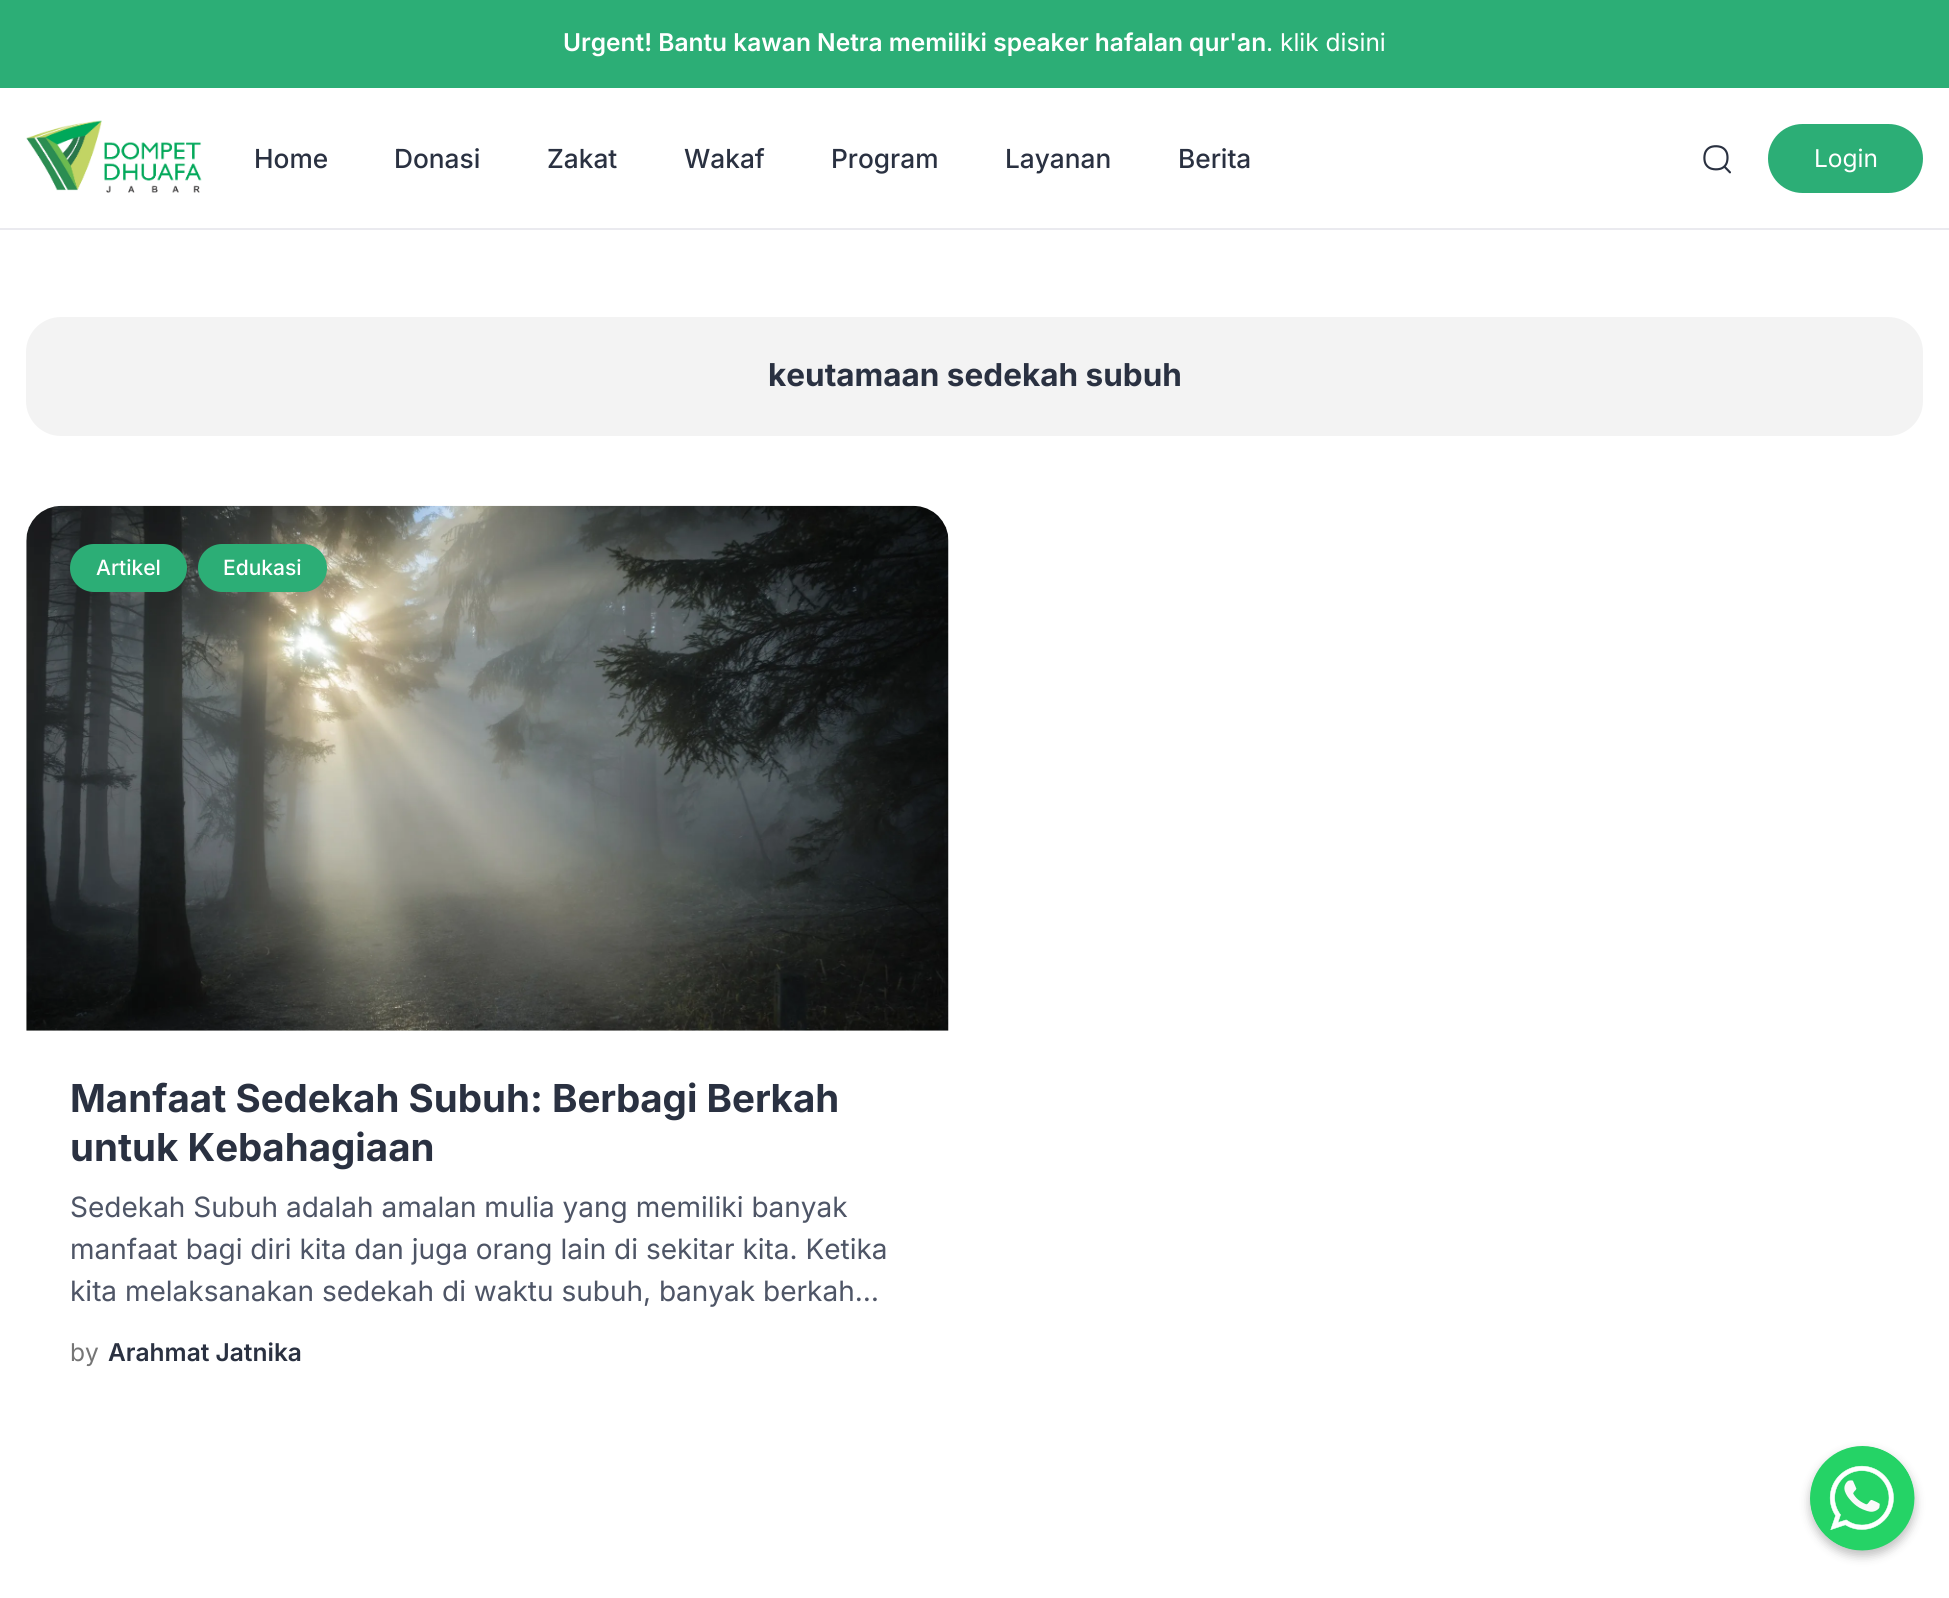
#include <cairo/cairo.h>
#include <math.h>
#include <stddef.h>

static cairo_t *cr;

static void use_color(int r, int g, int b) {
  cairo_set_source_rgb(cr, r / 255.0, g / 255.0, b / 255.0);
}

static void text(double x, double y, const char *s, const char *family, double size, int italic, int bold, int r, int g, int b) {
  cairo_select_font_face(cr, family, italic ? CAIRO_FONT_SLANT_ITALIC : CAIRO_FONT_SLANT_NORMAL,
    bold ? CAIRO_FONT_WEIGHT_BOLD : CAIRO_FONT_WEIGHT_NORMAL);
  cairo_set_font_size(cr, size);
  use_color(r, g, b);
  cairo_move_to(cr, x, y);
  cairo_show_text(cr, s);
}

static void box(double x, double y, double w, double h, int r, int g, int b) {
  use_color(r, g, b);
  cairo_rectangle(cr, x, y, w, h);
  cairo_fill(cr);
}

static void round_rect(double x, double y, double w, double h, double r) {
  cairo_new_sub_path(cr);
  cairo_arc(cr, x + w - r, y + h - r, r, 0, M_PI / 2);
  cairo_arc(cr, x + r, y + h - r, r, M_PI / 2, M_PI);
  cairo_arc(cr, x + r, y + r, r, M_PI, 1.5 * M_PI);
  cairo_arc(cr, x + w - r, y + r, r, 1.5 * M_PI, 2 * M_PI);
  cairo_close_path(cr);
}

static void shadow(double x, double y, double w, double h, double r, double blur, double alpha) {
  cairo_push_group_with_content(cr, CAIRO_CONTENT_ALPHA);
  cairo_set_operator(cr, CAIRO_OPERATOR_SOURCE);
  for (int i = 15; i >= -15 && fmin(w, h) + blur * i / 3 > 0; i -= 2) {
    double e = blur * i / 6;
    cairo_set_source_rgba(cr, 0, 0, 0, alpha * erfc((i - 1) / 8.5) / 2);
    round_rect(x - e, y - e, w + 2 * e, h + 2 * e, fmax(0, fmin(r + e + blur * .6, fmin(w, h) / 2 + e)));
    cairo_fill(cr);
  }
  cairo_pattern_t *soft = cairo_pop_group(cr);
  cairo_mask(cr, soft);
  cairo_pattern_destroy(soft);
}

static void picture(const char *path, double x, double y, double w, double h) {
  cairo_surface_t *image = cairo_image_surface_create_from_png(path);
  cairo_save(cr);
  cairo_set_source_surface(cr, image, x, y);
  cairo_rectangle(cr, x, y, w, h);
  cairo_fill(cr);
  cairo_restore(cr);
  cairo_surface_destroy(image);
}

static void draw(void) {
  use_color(255, 255, 255);
  cairo_paint(cr);
  box(0, 0, 1949, 88, 44, 174, 118);
  picture("img_01.png", 26, 120, 176, 73);
  picture("img_02.png", 1703, 145, 28, 29);
  round_rect(1768, 124, 155, 69, 34.5);
  cairo_fill(cr);
  box(0, 228, 1949, 2, 234, 234, 239);
  use_color(243, 243, 243);
  round_rect(26, 317, 1897, 119, 35);
  cairo_fill(cr);
  picture("img_03.png", 26, 505, 923, 526);
  use_color(44, 174, 118);
  round_rect(70, 544, 117, 48, 24);
  cairo_fill(cr);
  round_rect(198, 544, 129, 48, 24);
  cairo_fill(cr);
  use_color(0, 0, 0);
  shadow(1810, 1451, 105, 105, 52.5, 5, 0.25);
  picture("img_04.png", 1810, 1446, 105, 105);
  text(563, 51, "Urgent! Bantu kawan Netra memiliki speaker hafalan qur'an", "Inter SemiBold", 24.5, 0, 0, 255, 255, 255);
  text(1266, 51, ". klik disini", "Inter", 24.5, 0, 0, 255, 255, 255);
  text(254, 168, "Home", "Inter Medium", 26.25, 0, 0, 42, 49, 65);
  text(394, 168, "Donasi", "Inter Medium", 26.25, 0, 0, 42, 49, 65);
  text(547, 168, "Zakat", "Inter Medium", 26.25, 0, 0, 42, 49, 65);
  text(684, 168, "Wakaf", "Inter Medium", 26.25, 0, 0, 42, 49, 65);
  text(831, 168, "Program", "Inter Medium", 26.25, 0, 0, 42, 49, 65);
  text(1005, 168, "Layanan", "Inter Medium", 26.25, 0, 0, 42, 49, 65);
  text(1178, 168, "Berita", "Inter Medium", 26.25, 0, 0, 42, 49, 65);
  text(1814, 167, "Login", "Inter", 24.5, 0, 0, 255, 255, 255);
  text(768, 386, "keutamaan sedekah subuh", "Inter", 31.5, 0, 1, 42, 49, 65);
  text(96, 575, "Artikel", "Inter Medium", 21, 0, 0, 255, 255, 255);
  text(223, 575, "Edukasi", "Inter Medium", 21, 0, 0, 255, 255, 255);
  text(70, 1112, "Manfaat Sedekah Subuh: Berbagi Berkah", "Inter", 38.5, 0, 1, 42, 49, 65);
  text(70, 1161, "untuk Kebahagiaan", "Inter", 38.5, 0, 1, 42, 49, 65);
  text(70, 1217, "Sedekah Subuh adalah amalan mulia yang memiliki banyak", "Inter", 28, 0, 0, 78, 85, 102);
  text(70, 1259, "manfaat bagi diri kita dan juga orang lain di sekitar kita. Ketika", "Inter", 28, 0, 0, 78, 85, 102);
  text(70, 1301, "kita melaksanakan sedekah di waktu subuh, banyak berkah…", "Inter", 28, 0, 0, 78, 85, 102);
  text(70, 1361, "by", "Inter", 24.5, 0, 0, 117, 117, 117);
  text(108, 1361, "Arahmat Jatnika", "Inter SemiBold", 24.5, 0, 0, 42, 49, 65);
}

int main(void) {
  cairo_surface_t *surface = cairo_image_surface_create(CAIRO_FORMAT_RGB24, 1949, 1598);
  cr = cairo_create(surface);
  cairo_font_options_t *options = cairo_font_options_create();
  cairo_font_options_set_hint_metrics(options, CAIRO_HINT_METRICS_OFF);
  cairo_font_options_set_hint_style(options, CAIRO_HINT_STYLE_NONE);
  cairo_set_font_options(cr, options);
  cairo_set_miter_limit(cr, 4);
  draw();
  cairo_surface_write_to_png(surface, "out.png");
  cairo_font_options_destroy(options);
  cairo_destroy(cr);
  cairo_surface_destroy(surface);
  return 0;
}
